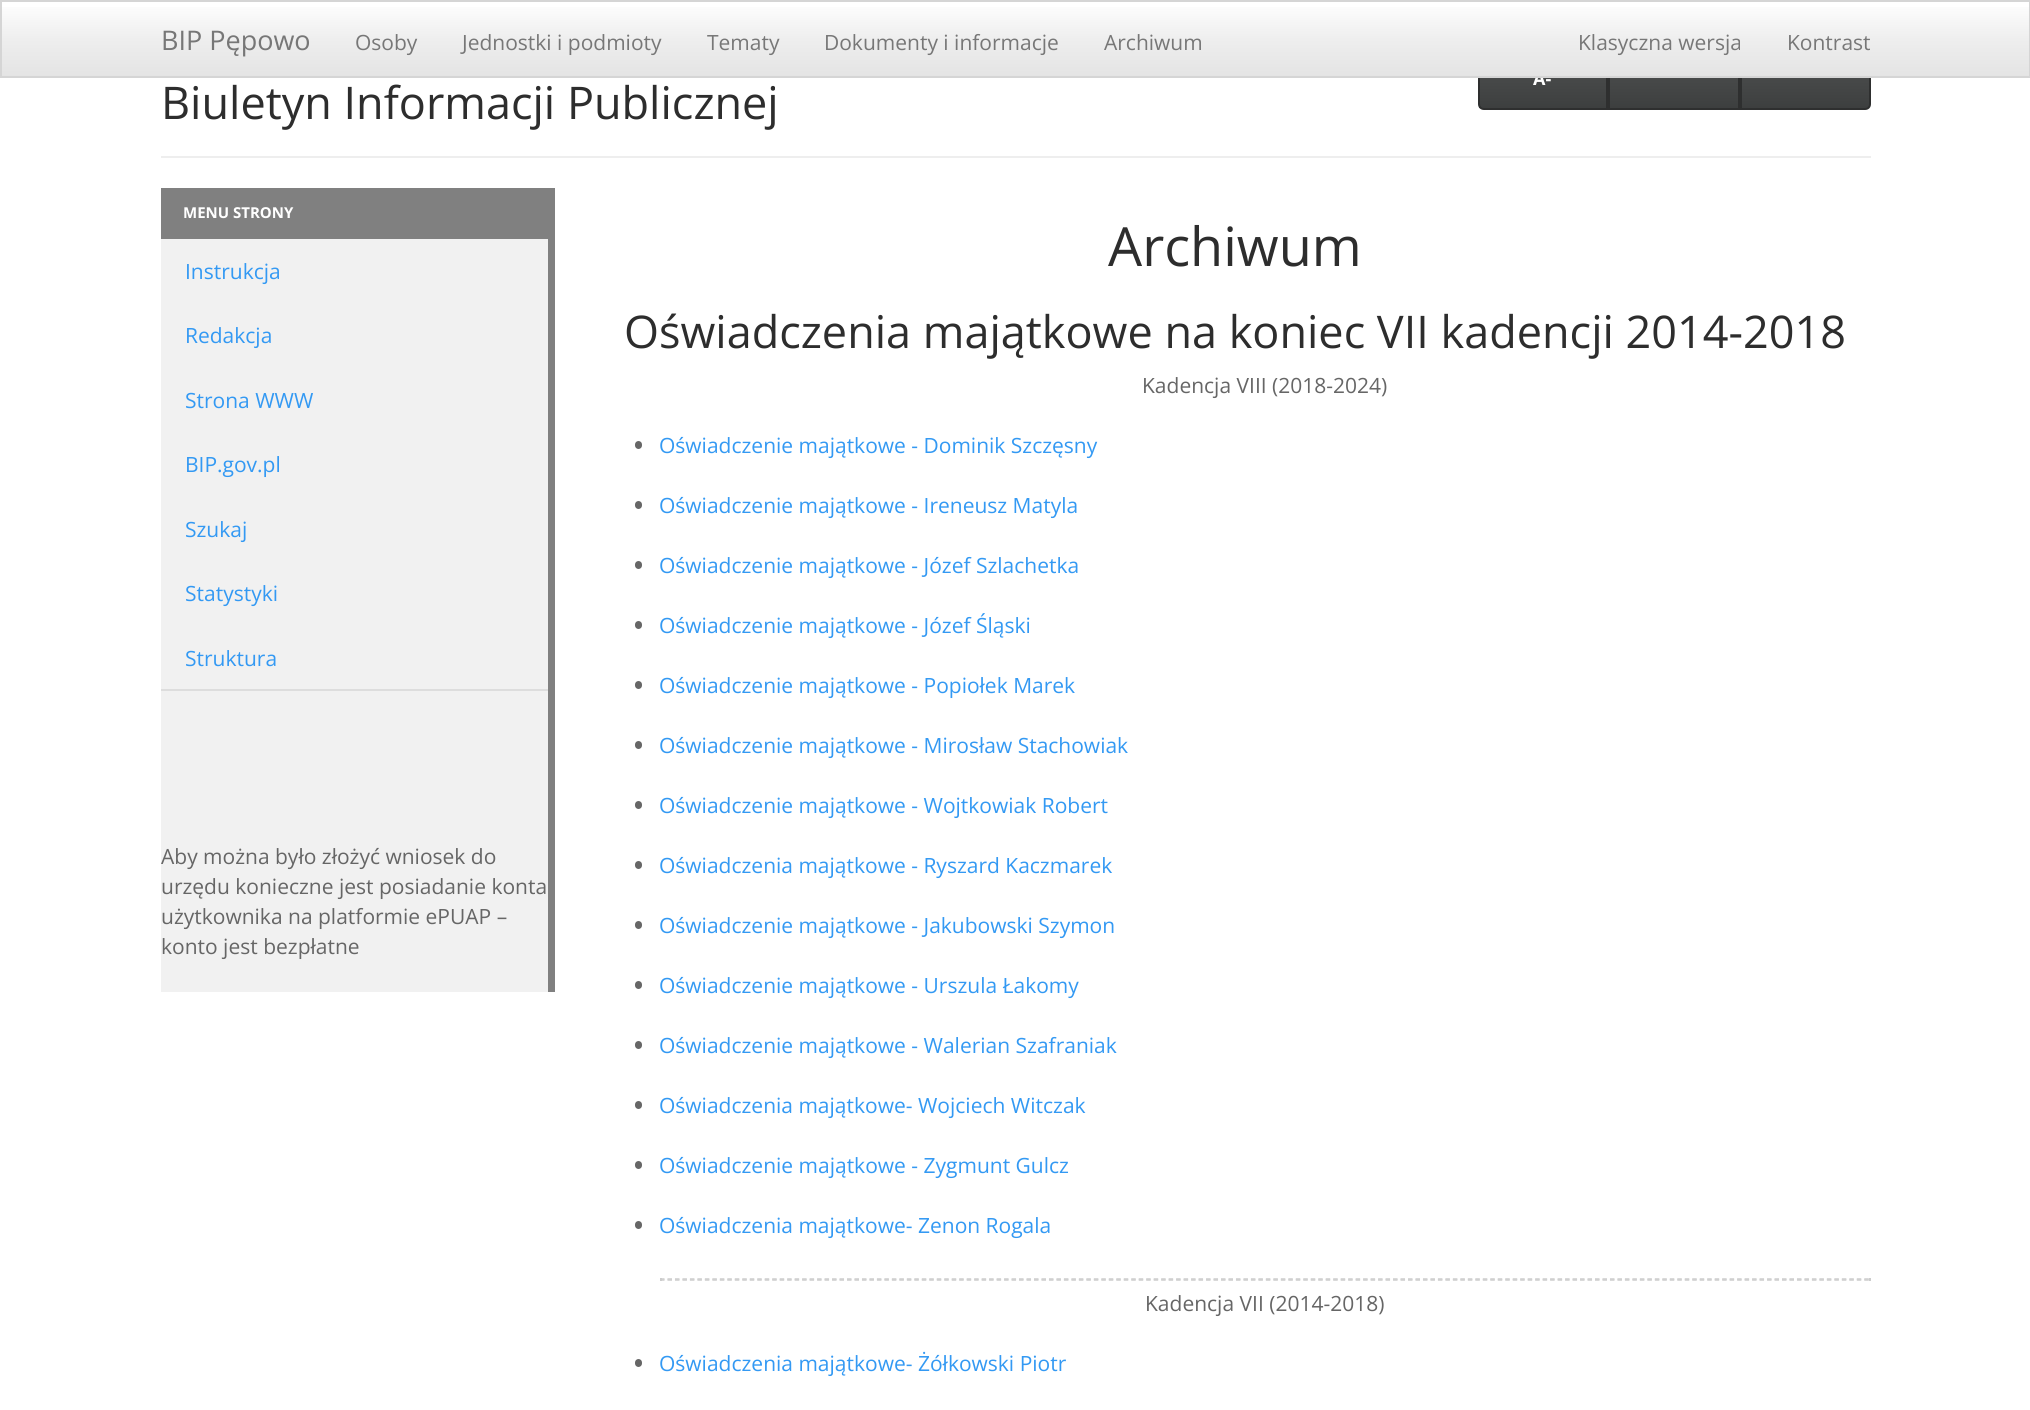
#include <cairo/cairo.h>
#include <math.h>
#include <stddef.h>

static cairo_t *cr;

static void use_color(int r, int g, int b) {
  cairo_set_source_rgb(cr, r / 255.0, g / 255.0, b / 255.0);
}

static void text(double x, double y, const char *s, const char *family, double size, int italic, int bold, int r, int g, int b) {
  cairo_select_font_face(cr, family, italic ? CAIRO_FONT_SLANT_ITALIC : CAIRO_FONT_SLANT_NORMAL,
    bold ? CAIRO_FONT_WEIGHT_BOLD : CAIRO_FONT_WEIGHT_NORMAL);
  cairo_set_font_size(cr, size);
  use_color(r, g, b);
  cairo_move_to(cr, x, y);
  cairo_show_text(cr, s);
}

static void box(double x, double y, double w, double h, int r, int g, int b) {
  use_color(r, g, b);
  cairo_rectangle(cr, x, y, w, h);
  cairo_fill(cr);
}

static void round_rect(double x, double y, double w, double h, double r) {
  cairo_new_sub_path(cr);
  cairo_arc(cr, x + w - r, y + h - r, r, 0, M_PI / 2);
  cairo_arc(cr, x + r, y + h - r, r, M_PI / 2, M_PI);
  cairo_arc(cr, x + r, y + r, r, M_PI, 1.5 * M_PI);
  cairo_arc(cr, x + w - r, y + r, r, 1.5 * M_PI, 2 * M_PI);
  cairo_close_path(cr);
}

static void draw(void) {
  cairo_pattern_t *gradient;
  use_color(255, 255, 255);
  cairo_paint(cr);
  box(161, 156, 1710, 2, 238, 238, 238);
  gradient = cairo_pattern_create_linear(1543, 50, 1543, 108);
  cairo_pattern_add_color_stop_rgba(gradient, 0, 0.427, 0.439, 0.439, 1);
  cairo_pattern_add_color_stop_rgba(gradient, 0.5, 0.278, 0.286, 0.286, 1);
  cairo_pattern_add_color_stop_rgba(gradient, 1, 0.239, 0.247, 0.247, 1);
  cairo_set_source(cr, gradient);
  cairo_pattern_destroy(gradient);
  cairo_rectangle(cr, 1479, 78, 127, 30);
  cairo_fill(cr);
  cairo_new_path(cr);
  cairo_move_to(cr, 1484, 49);
  cairo_line_to(cr, 1607, 49);
  cairo_line_to(cr, 1607, 109);
  cairo_line_to(cr, 1484, 109);
  cairo_curve_to(cr, 1481, 109, 1479, 107, 1479, 104);
  cairo_line_to(cr, 1479, 54);
  cairo_curve_to(cr, 1479, 51, 1481, 49, 1484, 49);
  cairo_close_path(cr);
  use_color(46, 47, 47);
  cairo_stroke(cr);
  gradient = cairo_pattern_create_linear(1674, 50, 1674, 108);
  cairo_pattern_add_color_stop_rgba(gradient, 0, 0.427, 0.439, 0.439, 1);
  cairo_pattern_add_color_stop_rgba(gradient, 0.5, 0.278, 0.286, 0.286, 1);
  cairo_pattern_add_color_stop_rgba(gradient, 1, 0.239, 0.247, 0.247, 1);
  cairo_set_source(cr, gradient);
  cairo_pattern_destroy(gradient);
  cairo_rectangle(cr, 1610, 78, 128, 30);
  cairo_fill(cr);
  cairo_rectangle(cr, 1609, 49, 130, 60);
  use_color(46, 47, 47);
  cairo_stroke(cr);
  gradient = cairo_pattern_create_linear(1805, 50, 1805, 108);
  cairo_pattern_add_color_stop_rgba(gradient, 0, 0.427, 0.439, 0.439, 1);
  cairo_pattern_add_color_stop_rgba(gradient, 0.5, 0.278, 0.286, 0.286, 1);
  cairo_pattern_add_color_stop_rgba(gradient, 1, 0.239, 0.247, 0.247, 1);
  cairo_set_source(cr, gradient);
  cairo_pattern_destroy(gradient);
  cairo_rectangle(cr, 1742, 78, 127, 30);
  cairo_fill(cr);
  cairo_new_path(cr);
  cairo_move_to(cr, 1741, 49);
  cairo_line_to(cr, 1865, 49);
  cairo_curve_to(cr, 1868, 49, 1870, 51, 1870, 54);
  cairo_line_to(cr, 1870, 104);
  cairo_curve_to(cr, 1870, 107, 1868, 109, 1865, 109);
  cairo_line_to(cr, 1741, 109);
  cairo_close_path(cr);
  use_color(46, 47, 47);
  cairo_stroke(cr);
  box(161, 239, 387, 753, 241, 241, 241);
  box(548, 188, 7, 804, 128, 128, 128);
  box(161, 689, 387, 2, 221, 221, 221);
  box(161, 188, 387, 51, 128, 128, 128);
  use_color(102, 102, 102);
  round_rect(635, 441, 7, 8, 3.5);
  cairo_fill(cr);
  round_rect(635, 501, 7, 8, 3.5);
  cairo_fill(cr);
  round_rect(635, 561, 7, 8, 3.5);
  cairo_fill(cr);
  round_rect(635, 621, 7, 8, 3.5);
  cairo_fill(cr);
  round_rect(635, 681, 7, 8, 3.5);
  cairo_fill(cr);
  round_rect(635, 741, 7, 8, 3.5);
  cairo_fill(cr);
  round_rect(635, 801, 7, 8, 3.5);
  cairo_fill(cr);
  round_rect(635, 861, 7, 8, 3.5);
  cairo_fill(cr);
  round_rect(635, 921, 7, 8, 3.5);
  cairo_fill(cr);
  round_rect(635, 981, 7, 8, 3.5);
  cairo_fill(cr);
  round_rect(635, 1041, 7, 8, 3.5);
  cairo_fill(cr);
  round_rect(635, 1101, 7, 8, 3.5);
  cairo_fill(cr);
  round_rect(635, 1161, 7, 8, 3.5);
  cairo_fill(cr);
  round_rect(635, 1221, 7, 8, 3.5);
  cairo_fill(cr);
  cairo_new_path(cr);
  cairo_move_to(cr, 660, 1279);
  cairo_line_to(cr, 1870.5, 1279);
  use_color(204, 204, 204);
  cairo_set_line_width(cr, 1.5);
  cairo_set_dash(cr, (double[]){4.5, 2.98}, 2, 0);
  cairo_stroke(cr);
  box(1869, 1278, 2, 3, 204, 204, 204);
  cairo_new_path(cr);
  cairo_move_to(cr, 660, 1280);
  cairo_line_to(cr, 1870.5, 1280);
  cairo_stroke(cr);
  box(660, 1278, 2, 3, 204, 204, 204);
  use_color(102, 102, 102);
  round_rect(635, 1359, 7, 8, 3.5);
  cairo_fill(cr);
  text(1533, 85, "A-", "Open Sans", 18, 0, 1, 255, 255, 255);
  gradient = cairo_pattern_create_linear(1016, 1.5, 1016, 77);
  cairo_pattern_add_color_stop_rgba(gradient, 0, 1, 1, 1, 1);
  cairo_pattern_add_color_stop_rgba(gradient, 0.5, 0.933, 0.933, 0.933, 1);
  cairo_pattern_add_color_stop_rgba(gradient, 1, 0.894, 0.894, 0.894, 1);
  cairo_set_source(cr, gradient);
  cairo_pattern_destroy(gradient);
  cairo_rectangle(cr, 2, 7, 2027, 69);
  cairo_fill(cr);
  cairo_rectangle(cr, 1, 1, 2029, 76);
  use_color(213, 213, 213);
  cairo_set_line_width(cr, 2);
  cairo_set_dash(cr, NULL, 0, 0);
  cairo_stroke(cr);
  text(1787, 50, "Kontrast", "Open Sans", 21, 0, 0, 119, 119, 119);
  text(1578, 50, "Klasyczna wersja", "Open Sans", 21, 0, 0, 119, 119, 119);
  text(1104, 50, "Archiwum", "Open Sans", 21, 0, 0, 119, 119, 119);
  text(824, 50, "Dokumenty i informacje", "Open Sans", 21, 0, 0, 119, 119, 119);
  text(707, 50, "Tematy", "Open Sans", 21, 0, 0, 119, 119, 119);
  text(462, 50, "Jednostki i podmioty", "Open Sans", 21, 0, 0, 119, 119, 119);
  text(355, 50, "Osoby", "Open Sans", 21, 0, 0, 119, 119, 119);
  text(161, 50, "BIP Pępowo", "Open Sans", 27, 0, 0, 119, 119, 119);
  text(161, 119, "Biuletyn Informacji Publicznej", "Open Sans", 45, 0, 0, 45, 45, 45);
  text(183, 218, "MENU STRONY", "Open Sans", 15, 0, 1, 255, 255, 255);
  text(185, 279, "Instrukcja", "Open Sans", 21, 0, 0, 51, 153, 243);
  text(185, 343, "Redakcja", "Open Sans", 21, 0, 0, 51, 153, 243);
  text(185, 408, "Strona WWW", "Open Sans", 21, 0, 0, 51, 153, 243);
  text(185, 472, "BIP.gov.pl", "Open Sans", 21, 0, 0, 51, 153, 243);
  text(185, 537, "Szukaj", "Open Sans", 21, 0, 0, 51, 153, 243);
  text(185, 601, "Statystyki", "Open Sans", 21, 0, 0, 51, 153, 243);
  text(185, 666, "Struktura", "Open Sans", 21, 0, 0, 51, 153, 243);
  text(161, 864, "Aby można było złożyć wniosek do", "Open Sans", 21, 0, 0, 102, 102, 102);
  text(161, 894, "urzędu konieczne jest posiadanie konta", "Open Sans", 21, 0, 0, 102, 102, 102);
  text(161, 924, "użytkownika na platformie ePUAP –", "Open Sans", 21, 0, 0, 102, 102, 102);
  text(161, 954, "konto jest bezpłatne", "Open Sans", 21, 0, 0, 102, 102, 102);
  text(1108, 266, "Archiwum", "Open Sans", 54, 0, 0, 45, 45, 45);
  text(624, 348, "Oświadczenia majątkowe na koniec VII kadencji 2014-2018", "Open Sans", 45, 0, 0, 45, 45, 45);
  text(1142, 393, "Kadencja VIII (2018-2024)", "Open Sans", 21, 0, 0, 102, 102, 102);
  text(659, 453, "Oświadczenie majątkowe - Dominik Szczęsny", "Open Sans", 21, 0, 0, 51, 153, 243);
  text(659, 513, "Oświadczenie majątkowe - Ireneusz Matyla", "Open Sans", 21, 0, 0, 51, 153, 243);
  text(659, 573, "Oświadczenie majątkowe - Józef Szlachetka", "Open Sans", 21, 0, 0, 51, 153, 243);
  text(659, 633, "Oświadczenie majątkowe - Józef Śląski", "Open Sans", 21, 0, 0, 51, 153, 243);
  text(659, 693, "Oświadczenie majątkowe - Popiołek Marek", "Open Sans", 21, 0, 0, 51, 153, 243);
  text(659, 753, "Oświadczenie majątkowe - Mirosław Stachowiak", "Open Sans", 21, 0, 0, 51, 153, 243);
  text(659, 813, "Oświadczenie majątkowe - Wojtkowiak Robert", "Open Sans", 21, 0, 0, 51, 153, 243);
  text(659, 873, "Oświadczenia majątkowe - Ryszard Kaczmarek", "Open Sans", 21, 0, 0, 51, 153, 243);
  text(659, 933, "Oświadczenie majątkowe - Jakubowski Szymon", "Open Sans", 21, 0, 0, 51, 153, 243);
  text(659, 993, "Oświadczenie majątkowe - Urszula Łakomy", "Open Sans", 21, 0, 0, 51, 153, 243);
  text(659, 1053, "Oświadczenie majątkowe - Walerian Szafraniak", "Open Sans", 21, 0, 0, 51, 153, 243);
  text(659, 1113, "Oświadczenia majątkowe- Wojciech Witczak", "Open Sans", 21, 0, 0, 51, 153, 243);
  text(659, 1173, "Oświadczenie majątkowe - Zygmunt Gulcz", "Open Sans", 21, 0, 0, 51, 153, 243);
  text(659, 1233, "Oświadczenia majątkowe- Zenon Rogala", "Open Sans", 21, 0, 0, 51, 153, 243);
  text(1145, 1311, "Kadencja VII (2014-2018)", "Open Sans", 21, 0, 0, 102, 102, 102);
  text(659, 1371, "Oświadczenia majątkowe- Żółkowski Piotr", "Open Sans", 21, 0, 0, 51, 153, 243);
}

int main(void) {
  cairo_surface_t *surface = cairo_image_surface_create(CAIRO_FORMAT_RGB24, 2030, 1410);
  cr = cairo_create(surface);
  cairo_font_options_t *options = cairo_font_options_create();
  cairo_font_options_set_hint_metrics(options, CAIRO_HINT_METRICS_OFF);
  cairo_font_options_set_hint_style(options, CAIRO_HINT_STYLE_NONE);
  cairo_set_font_options(cr, options);
  cairo_set_miter_limit(cr, 4);
  draw();
  cairo_surface_write_to_png(surface, "out.png");
  cairo_font_options_destroy(options);
  cairo_destroy(cr);
  cairo_surface_destroy(surface);
  return 0;
}
